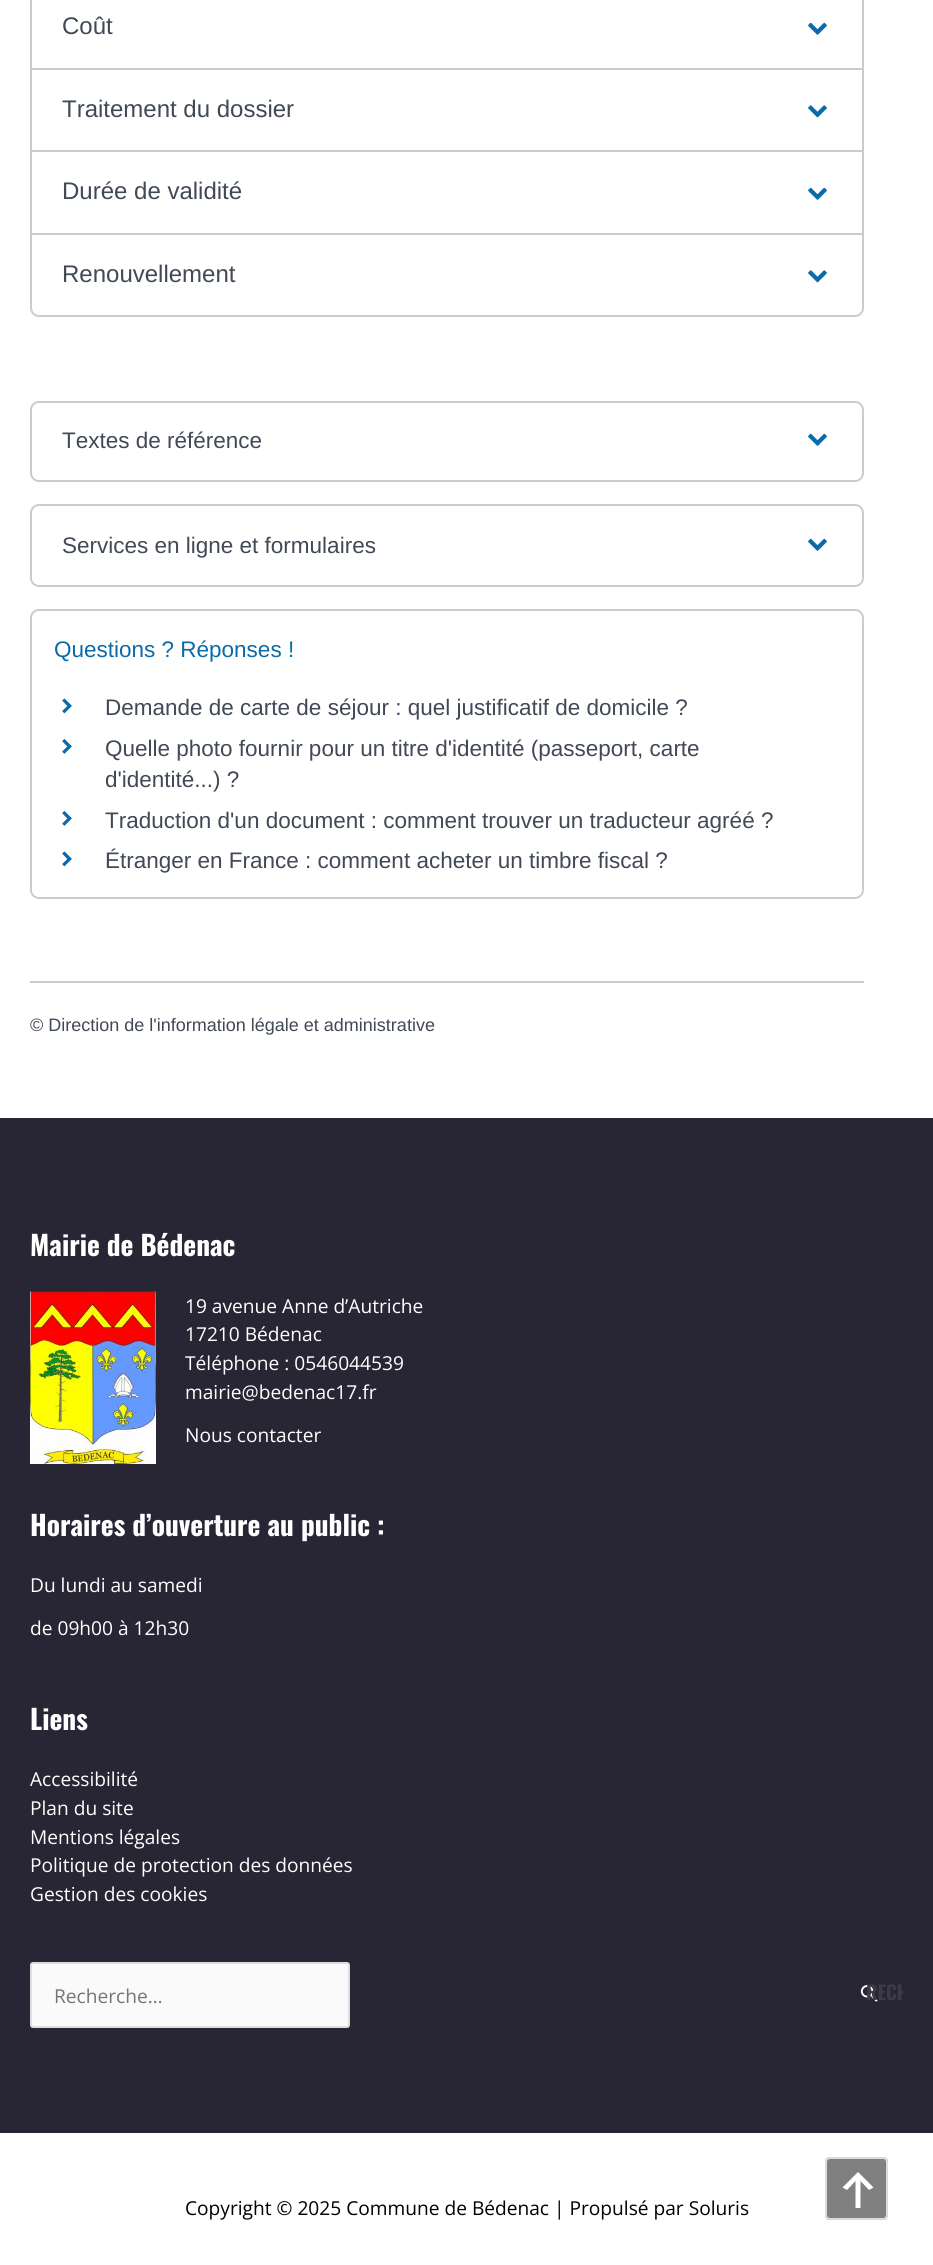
#include <cairo/cairo.h>
#include <math.h>
#include <stddef.h>

static cairo_t *cr;

static void use_color(int r, int g, int b) {
  cairo_set_source_rgb(cr, r / 255.0, g / 255.0, b / 255.0);
}

static void text(double x, double y, const char *s, const char *family, double size, int italic, int bold, int r, int g, int b) {
  cairo_select_font_face(cr, family, italic ? CAIRO_FONT_SLANT_ITALIC : CAIRO_FONT_SLANT_NORMAL,
    bold ? CAIRO_FONT_WEIGHT_BOLD : CAIRO_FONT_WEIGHT_NORMAL);
  cairo_set_font_size(cr, size);
  use_color(r, g, b);
  cairo_move_to(cr, x, y);
  cairo_show_text(cr, s);
}

static void box(double x, double y, double w, double h, int r, int g, int b) {
  use_color(r, g, b);
  cairo_rectangle(cr, x, y, w, h);
  cairo_fill(cr);
}

static void round_rect(double x, double y, double w, double h, double r) {
  cairo_new_sub_path(cr);
  cairo_arc(cr, x + w - r, y + h - r, r, 0, M_PI / 2);
  cairo_arc(cr, x + r, y + h - r, r, M_PI / 2, M_PI);
  cairo_arc(cr, x + r, y + r, r, M_PI, 1.5 * M_PI);
  cairo_arc(cr, x + w - r, y + r, r, 1.5 * M_PI, 2 * M_PI);
  cairo_close_path(cr);
}

static void picture(const char *path, double x, double y, double w, double h) {
  cairo_surface_t *image = cairo_image_surface_create_from_png(path);
  cairo_save(cr);
  cairo_set_source_surface(cr, image, x, y);
  cairo_rectangle(cr, x, y, w, h);
  cairo_fill(cr);
  cairo_restore(cr);
  cairo_surface_destroy(image);
}

static void draw(void) {
  use_color(255, 255, 255);
  cairo_paint(cr);
  round_rect(31, -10, 832, 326, 8);
  use_color(204, 204, 204);
  cairo_stroke(cr);
  picture("img_01.png", 808, 22, 19, 13);
  box(32, 68, 831, 2, 204, 204, 204);
  picture("img_02.png", 808, 105, 19, 13);
  box(32, 150, 831, 2, 204, 204, 204);
  picture("img_01.png", 808, 187, 19, 13);
  box(32, 233, 831, 2, 204, 204, 204);
  picture("img_02.png", 808, 270, 19, 13);
  round_rect(31, 402, 832, 79, 8);
  cairo_stroke(cr);
  picture("img_01.png", 808, 433, 19, 13);
  round_rect(31, 505, 832, 81, 8);
  cairo_stroke(cr);
  picture("img_01.png", 808, 538, 19, 13);
  round_rect(31, 610, 832, 288, 8);
  cairo_stroke(cr);
  picture("img_03.png", 62, 698, 10, 16);
  picture("img_04.png", 62, 739, 10, 15);
  picture("img_05.png", 62, 811, 10, 15);
  picture("img_03.png", 62, 851, 10, 16);
  box(30, 981, 834, 2, 204, 204, 204);
  use_color(128, 128, 128);
  round_rect(825, 2157, 63, 63, 5);
  cairo_fill(cr);
  round_rect(826, 2158, 61, 61, 4);
  cairo_set_source_rgba(cr, 0.949, 0.949, 0.949, 0.8);
  cairo_stroke(cr);
  use_color(255, 255, 255);
  cairo_new_path(cr);
  cairo_move_to(cr, 860.5, 2208);
  cairo_line_to(cr, 855.5, 2208);
  cairo_line_to(cr, 855.5, 2181);
  cairo_line_to(cr, 847, 2190);
  cairo_line_to(cr, 842.5, 2187.5);
  cairo_line_to(cr, 858, 2172);
  cairo_line_to(cr, 873.5, 2187.5);
  cairo_line_to(cr, 869, 2190);
  cairo_line_to(cr, 860.5, 2181);
  cairo_close_path(cr);
  cairo_fill(cr);
  box(0, 1118, 933, 1015, 40, 37, 52);
  picture("img_06.png", 30, 1291, 126, 173);
  use_color(250, 250, 250);
  round_rect(31, 1963, 318, 64, 2);
  cairo_fill_preserve(cr);
  use_color(221, 221, 221);
  cairo_stroke(cr);
  picture("img_07.png", 860, 1985, 18, 17);
  text(62, 34, "Coût", "Liberation Sans", 24, 0, 0, 65, 72, 86);
  text(62, 117, "Traitement du dossier", "Liberation Sans", 24, 0, 0, 65, 72, 86);
  text(62, 199, "Durée de validité", "Liberation Sans", 24, 0, 0, 65, 72, 86);
  text(62, 282, "Renouvellement", "Liberation Sans", 24, 0, 0, 65, 72, 86);
  text(62, 448, "Textes de référence", "Liberation Sans", 22.5, 0, 0, 65, 72, 86);
  text(62, 553, "Services en ligne et formulaires", "Liberation Sans", 22.5, 0, 0, 65, 72, 86);
  text(54, 657, "Questions ? Réponses !", "Liberation Sans", 22.5, 0, 0, 11, 107, 168);
  text(105, 715, "Demande de carte de séjour : quel justificatif de domicile ?", "Liberation Sans", 22.5, 0, 0, 65, 72, 86);
  text(105, 756, "Quelle photo fournir pour un titre d'identité (passeport, carte", "Liberation Sans", 22.5, 0, 0, 65, 72, 86);
  text(105, 787, "d'identité...) ?", "Liberation Sans", 22.5, 0, 0, 65, 72, 86);
  text(105, 828, "Traduction d'un document : comment trouver un traducteur agréé ?", "Liberation Sans", 22.5, 0, 0, 65, 72, 86);
  text(105, 868, "Étranger en France : comment acheter un timbre fiscal ?", "Liberation Sans", 22.5, 0, 0, 65, 72, 86);
  text(30, 1031, "© Direction de l'information légale et administrative", "Liberation Sans", 18, 0, 0, 65, 72, 86);
  text(30, 1256, "Mairie de Bédenac", "Oswald", 27.4, 0, 1, 255, 255, 255);
  text(185, 1313, "19 avenue Anne d’Autriche", "Open Sans", 19.15, 0, 0, 255, 255, 255);
  text(185, 1341, "17210 Bédenac", "Open Sans", 19.15, 0, 0, 255, 255, 255);
  text(185, 1370, "Téléphone : 0546044539", "Open Sans", 19.15, 0, 0, 255, 255, 255);
  text(185, 1399, "mairie@bedenac17.fr", "Open Sans", 19.15, 0, 0, 255, 255, 255);
  text(185, 1442, "Nous contacter", "Open Sans", 19.15, 0, 0, 255, 255, 255);
  text(30, 1536, "Horaires d’ouverture au public :", "Oswald", 27.4, 0, 1, 255, 255, 255);
  text(30, 1592, "Du lundi au samedi", "Open Sans", 19.15, 0, 0, 255, 255, 255);
  text(30, 1635, "de 09h00 à 12h30", "Open Sans", 19.15, 0, 0, 255, 255, 255);
  text(30, 1730, "Liens", "Oswald", 27.4, 0, 1, 255, 255, 255);
  text(30, 1786, "Accessibilité", "Open Sans", 19.15, 0, 0, 255, 255, 255);
  text(30, 1815, "Plan du site", "Open Sans", 19.15, 0, 0, 255, 255, 255);
  text(30, 1844, "Mentions légales", "Open Sans", 19.15, 0, 0, 255, 255, 255);
  text(30, 1872, "Politique de protection des données", "Open Sans", 19.15, 0, 0, 255, 255, 255);
  text(30, 1901, "Gestion des cookies", "Open Sans", 19.15, 0, 0, 255, 255, 255);
  cairo_save(cr);
  round_rect(836, 1962, 67, 60, 3);
  cairo_clip(cr);
  text(866, 2000, "RECH", "Oswald", 19.15, 0, 1, 61, 58, 72);
  cairo_restore(cr);
  text(54, 2003, "Recherche…", "Open Sans", 19.15, 0, 0, 117, 117, 117);
  text(185, 2215, "Copyright © 2025 Commune de Bédenac | Propulsé par Soluris", "Open Sans", 19.15, 0, 0, 0, 0, 0);
}

int main(void) {
  cairo_surface_t *surface = cairo_image_surface_create(CAIRO_FORMAT_RGB24, 933, 2265);
  cr = cairo_create(surface);
  cairo_font_options_t *options = cairo_font_options_create();
  cairo_font_options_set_hint_metrics(options, CAIRO_HINT_METRICS_OFF);
  cairo_font_options_set_hint_style(options, CAIRO_HINT_STYLE_NONE);
  cairo_set_font_options(cr, options);
  cairo_set_miter_limit(cr, 4);
  draw();
  cairo_surface_write_to_png(surface, "out.png");
  cairo_font_options_destroy(options);
  cairo_destroy(cr);
  cairo_surface_destroy(surface);
  return 0;
}
